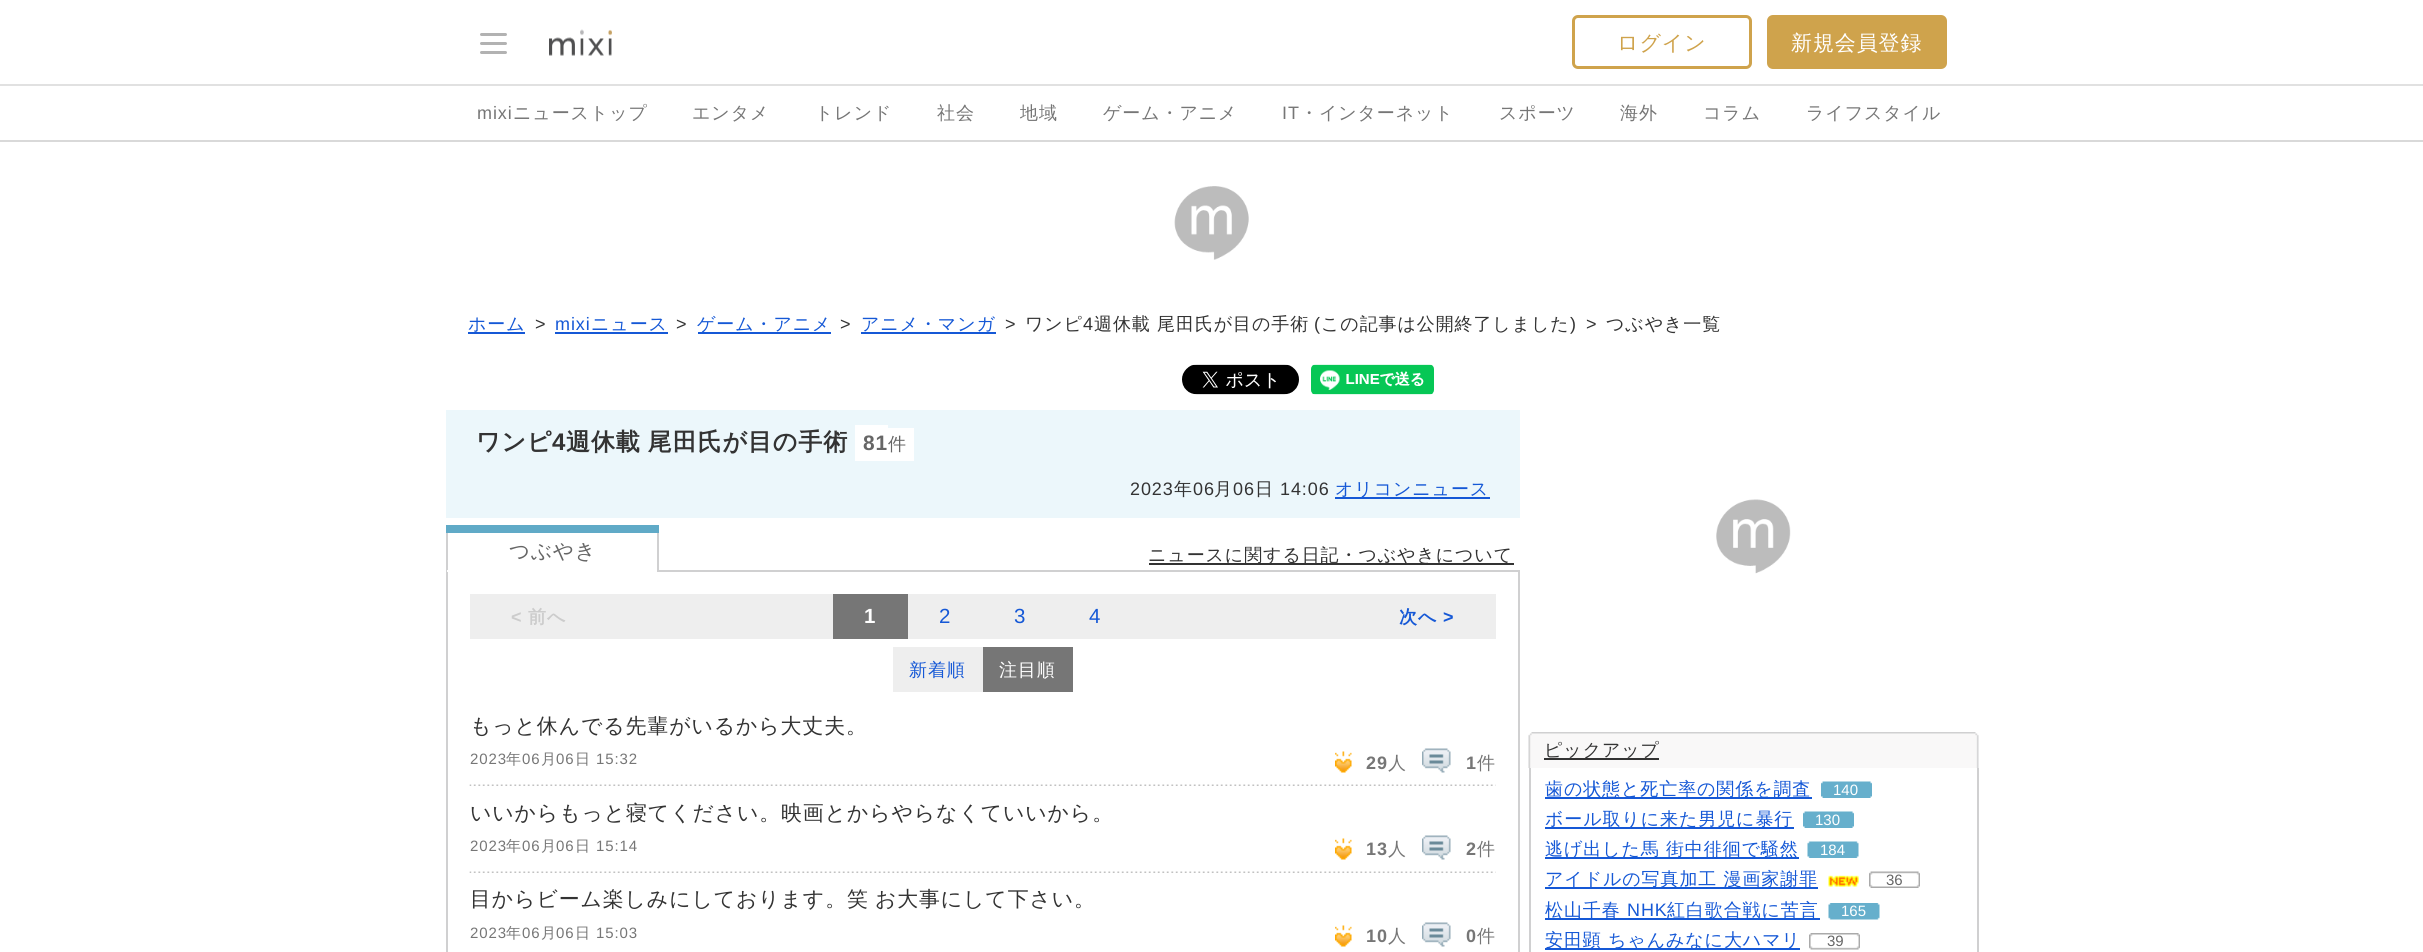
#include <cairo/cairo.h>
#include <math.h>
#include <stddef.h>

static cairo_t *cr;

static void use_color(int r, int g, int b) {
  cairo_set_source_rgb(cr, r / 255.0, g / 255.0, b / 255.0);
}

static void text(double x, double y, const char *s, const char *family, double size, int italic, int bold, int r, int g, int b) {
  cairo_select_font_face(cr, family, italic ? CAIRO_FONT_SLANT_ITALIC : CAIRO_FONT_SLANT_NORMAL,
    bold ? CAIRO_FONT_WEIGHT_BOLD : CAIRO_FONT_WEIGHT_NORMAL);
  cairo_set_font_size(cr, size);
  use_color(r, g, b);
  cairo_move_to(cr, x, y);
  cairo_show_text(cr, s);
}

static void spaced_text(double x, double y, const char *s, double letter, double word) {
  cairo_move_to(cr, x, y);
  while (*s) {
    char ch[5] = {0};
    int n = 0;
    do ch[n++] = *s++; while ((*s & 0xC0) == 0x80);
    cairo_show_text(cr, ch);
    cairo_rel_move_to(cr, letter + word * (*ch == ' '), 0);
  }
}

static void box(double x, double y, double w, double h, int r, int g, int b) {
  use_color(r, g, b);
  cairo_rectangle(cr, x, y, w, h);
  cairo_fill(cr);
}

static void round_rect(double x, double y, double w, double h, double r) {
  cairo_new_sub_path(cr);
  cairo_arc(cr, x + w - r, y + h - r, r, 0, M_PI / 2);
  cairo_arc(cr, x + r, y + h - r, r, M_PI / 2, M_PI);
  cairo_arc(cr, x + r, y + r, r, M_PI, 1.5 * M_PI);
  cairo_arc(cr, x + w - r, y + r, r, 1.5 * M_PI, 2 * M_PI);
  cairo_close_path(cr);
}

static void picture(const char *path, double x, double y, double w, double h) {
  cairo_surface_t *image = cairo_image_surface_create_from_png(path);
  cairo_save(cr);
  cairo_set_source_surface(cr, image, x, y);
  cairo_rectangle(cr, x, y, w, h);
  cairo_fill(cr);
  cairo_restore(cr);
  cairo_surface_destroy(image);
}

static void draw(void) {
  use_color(255, 255, 255);
  cairo_paint(cr);
  box(0, 84, 2423, 2, 225, 225, 225);
  use_color(178, 178, 178);
  round_rect(480, 33, 27, 3, 1.5);
  cairo_fill(cr);
  round_rect(480, 42, 27, 3, 1.5);
  cairo_fill(cr);
  round_rect(480, 51, 27, 3, 1.5);
  cairo_fill(cr);
  picture("img_01.png", 549, 29, 63, 27);
  round_rect(1573.5, 16.5, 177, 51, 4.5);
  use_color(207, 163, 76);
  cairo_set_line_width(cr, 3);
  cairo_stroke(cr);
  round_rect(1768.5, 16.5, 177, 51, 4.5);
  cairo_fill_preserve(cr);
  cairo_stroke(cr);
  box(0, 140, 2423, 2, 217, 217, 217);
  picture("img_02.png", 1174, 186, 75, 74);
  box(468, 332, 57, 2, 21, 88, 214);
  box(555, 332, 113, 2, 21, 88, 214);
  box(698, 332, 133, 2, 21, 88, 214);
  box(861, 332, 135, 2, 21, 88, 214);
  picture("img_03.png", 1182, 364, 117, 31);
  picture("img_04.png", 1311, 364, 123, 31);
  box(446, 410, 1074, 108, 236, 247, 251);
  box(855, 425, 33, 36, 255, 255, 255);
  box(888, 428, 26, 33, 255, 255, 255);
  box(1335, 497, 155, 2, 21, 88, 214);
  box(446, 525, 213, 8, 96, 170, 199);
  cairo_rectangle(cr, 447, 571, 1072, 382);
  use_color(208, 208, 209);
  cairo_set_line_width(cr, 2);
  cairo_stroke(cr);
  box(657, 533, 2, 39, 208, 208, 209);
  box(446, 533, 2, 39, 208, 208, 209);
  box(447, 570, 210, 2, 255, 255, 255);
  box(1149, 563, 365, 2, 51, 51, 51);
  box(470, 594, 1026, 45, 238, 238, 238);
  box(833, 594, 75, 45, 118, 118, 118);
  box(893, 647, 90, 45, 238, 238, 238);
  box(983, 647, 90, 45, 118, 118, 118);
  picture("img_05.png", 469, 784, 1027, 2);
  picture("img_06.png", 1335, 751, 17, 22);
  picture("img_07.png", 1422, 748, 29, 25);
  picture("img_05.png", 469, 871, 1027, 2);
  picture("img_06.png", 1335, 838, 17, 22);
  picture("img_07.png", 1422, 835, 29, 25);
  picture("img_06.png", 1335, 925, 17, 22);
  picture("img_07.png", 1422, 922, 29, 25);
  picture("img_08.png", 1716, 499, 75, 75);
  picture("img_09.png", 1528, 732, 451, 36);
  box(1544, 758, 115, 2, 51, 51, 51);
  box(1977, 768, 2, 184, 208, 208, 209);
  box(1529, 768, 2, 184, 208, 208, 209);
  box(1545, 797, 267, 2, 21, 88, 214);
  picture("img_10.png", 1821, 781, 51, 17);
  box(1545, 827, 249, 2, 21, 88, 214);
  picture("img_10.png", 1803, 811, 51, 17);
  box(1545, 857, 254, 2, 21, 88, 214);
  picture("img_11.png", 1807, 841, 52, 17);
  box(1545, 887, 273, 2, 21, 88, 214);
  picture("img_12.png", 1828, 875, 31, 12);
  picture("img_13.png", 1869, 871, 51, 17);
  box(1545, 918, 275, 2, 21, 88, 214);
  picture("img_14.png", 1828, 903, 52, 17);
  box(1545, 948, 255, 2, 21, 88, 214);
  picture("img_15.png", 1809, 933, 51, 17);
  cairo_select_font_face(cr, "WenQuanYi Zen Hei Medium", CAIRO_FONT_SLANT_NORMAL, CAIRO_FONT_WEIGHT_NORMAL);
  cairo_set_font_size(cr, 21);
  use_color(207, 163, 76);
  spaced_text(1617, 50, "ログイン", 0.9, 0);
  use_color(255, 255, 255);
  spaced_text(1791, 50, "新規会員登録", 0.9, 0);
  cairo_select_font_face(cr, "Liberation Sans", CAIRO_FONT_SLANT_NORMAL, CAIRO_FONT_WEIGHT_NORMAL);
  cairo_set_font_size(cr, 18);
  use_color(118, 118, 118);
  spaced_text(477, 119, "mixi", 0.9, 0);
  cairo_select_font_face(cr, "WenQuanYi Zen Hei Medium", CAIRO_FONT_SLANT_NORMAL, CAIRO_FONT_WEIGHT_NORMAL);
  spaced_text(513, 119, "ニューストップ", 0.9, 0);
  spaced_text(692, 119, "エンタメ", 0.9, 0);
  spaced_text(815, 119, "トレンド", 0.9, 0);
  spaced_text(937, 119, "社会", 0.9, 0);
  spaced_text(1020, 119, "地域", 0.9, 0);
  spaced_text(1103, 119, "ゲーム・アニメ", 0.9, 0);
  cairo_select_font_face(cr, "Liberation Sans", CAIRO_FONT_SLANT_NORMAL, CAIRO_FONT_WEIGHT_NORMAL);
  spaced_text(1282, 119, "IT", 0.9, 0);
  cairo_select_font_face(cr, "WenQuanYi Zen Hei Medium", CAIRO_FONT_SLANT_NORMAL, CAIRO_FONT_WEIGHT_NORMAL);
  spaced_text(1300, 119, "・インターネット", 0.9, 0);
  spaced_text(1499, 119, "スポーツ", 0.9, 0);
  spaced_text(1620, 119, "海外", 0.9, 0);
  spaced_text(1703, 119, "コラム", 0.9, 0);
  spaced_text(1806, 119, "ライフスタイル", 0.9, 0);
  use_color(21, 88, 214);
  spaced_text(468, 330, "ホーム", 0.9, 0);
  cairo_select_font_face(cr, "Liberation Sans", CAIRO_FONT_SLANT_NORMAL, CAIRO_FONT_WEIGHT_NORMAL);
  use_color(51, 51, 51);
  spaced_text(535, 330, ">", 0.9, 0);
  use_color(21, 88, 214);
  spaced_text(555, 330, "mixi", 0.9, 0);
  cairo_select_font_face(cr, "WenQuanYi Zen Hei Medium", CAIRO_FONT_SLANT_NORMAL, CAIRO_FONT_WEIGHT_NORMAL);
  spaced_text(591, 330, "ニュース", 0.9, 0);
  cairo_select_font_face(cr, "Liberation Sans", CAIRO_FONT_SLANT_NORMAL, CAIRO_FONT_WEIGHT_NORMAL);
  use_color(51, 51, 51);
  spaced_text(676, 330, ">", 0.9, 0);
  cairo_select_font_face(cr, "WenQuanYi Zen Hei Medium", CAIRO_FONT_SLANT_NORMAL, CAIRO_FONT_WEIGHT_NORMAL);
  use_color(21, 88, 214);
  spaced_text(697, 330, "ゲーム・アニメ", 0.9, 0);
  cairo_select_font_face(cr, "Liberation Sans", CAIRO_FONT_SLANT_NORMAL, CAIRO_FONT_WEIGHT_NORMAL);
  use_color(51, 51, 51);
  spaced_text(840, 330, ">", 0.9, 0);
  cairo_select_font_face(cr, "WenQuanYi Zen Hei Medium", CAIRO_FONT_SLANT_NORMAL, CAIRO_FONT_WEIGHT_NORMAL);
  use_color(21, 88, 214);
  spaced_text(861, 330, "アニメ・マンガ", 0.9, 0);
  cairo_select_font_face(cr, "Liberation Sans", CAIRO_FONT_SLANT_NORMAL, CAIRO_FONT_WEIGHT_NORMAL);
  use_color(51, 51, 51);
  spaced_text(1005, 330, ">", 0.9, 0);
  cairo_select_font_face(cr, "WenQuanYi Zen Hei Medium", CAIRO_FONT_SLANT_NORMAL, CAIRO_FONT_WEIGHT_NORMAL);
  spaced_text(1025, 330, "ワンピ", 0.9, 0);
  cairo_select_font_face(cr, "Liberation Sans", CAIRO_FONT_SLANT_NORMAL, CAIRO_FONT_WEIGHT_NORMAL);
  spaced_text(1083, 330, "4", 0.9, 0);
  cairo_select_font_face(cr, "WenQuanYi Zen Hei Medium", CAIRO_FONT_SLANT_NORMAL, CAIRO_FONT_WEIGHT_NORMAL);
  spaced_text(1094, 330, "週休載 尾田氏が目の手術", 0.9, 0);
  cairo_select_font_face(cr, "Liberation Sans", CAIRO_FONT_SLANT_NORMAL, CAIRO_FONT_WEIGHT_NORMAL);
  spaced_text(1314, 330, "(", 0.9, 0);
  cairo_select_font_face(cr, "WenQuanYi Zen Hei Medium", CAIRO_FONT_SLANT_NORMAL, CAIRO_FONT_WEIGHT_NORMAL);
  spaced_text(1321, 330, "この記事は公開終了しました", 0.9, 0);
  cairo_select_font_face(cr, "Liberation Sans", CAIRO_FONT_SLANT_NORMAL, CAIRO_FONT_WEIGHT_NORMAL);
  spaced_text(1570, 330, ")", 0.9, 0);
  spaced_text(1586, 330, ">", 0.9, 0);
  cairo_select_font_face(cr, "WenQuanYi Zen Hei Medium", CAIRO_FONT_SLANT_NORMAL, CAIRO_FONT_WEIGHT_NORMAL);
  spaced_text(1606, 330, "つぶやき一覧", 0.9, 0);
  cairo_select_font_face(cr, "WenQuanYi Zen Hei", CAIRO_FONT_SLANT_NORMAL, CAIRO_FONT_WEIGHT_BOLD);
  cairo_set_font_size(cr, 24);
  spaced_text(476, 450, "ワンピ", 0.9, 0);
  cairo_select_font_face(cr, "Liberation Sans", CAIRO_FONT_SLANT_NORMAL, CAIRO_FONT_WEIGHT_BOLD);
  spaced_text(552, 450, "4", 0.9, 0);
  cairo_select_font_face(cr, "WenQuanYi Zen Hei", CAIRO_FONT_SLANT_NORMAL, CAIRO_FONT_WEIGHT_BOLD);
  spaced_text(566, 450, "週休載 尾田氏が目の手術", 0.9, -1);
  cairo_select_font_face(cr, "Liberation Sans", CAIRO_FONT_SLANT_NORMAL, CAIRO_FONT_WEIGHT_BOLD);
  cairo_set_font_size(cr, 20.9);
  use_color(102, 102, 102);
  spaced_text(863, 450, "81", 0.9, 0);
  cairo_select_font_face(cr, "WenQuanYi Zen Hei Medium", CAIRO_FONT_SLANT_NORMAL, CAIRO_FONT_WEIGHT_NORMAL);
  cairo_set_font_size(cr, 18);
  spaced_text(888, 450, "件", 0.9, 0);
  cairo_select_font_face(cr, "Liberation Sans", CAIRO_FONT_SLANT_NORMAL, CAIRO_FONT_WEIGHT_NORMAL);
  use_color(51, 51, 51);
  spaced_text(1130, 495, "2023", 0.9, 0);
  cairo_select_font_face(cr, "WenQuanYi Zen Hei Medium", CAIRO_FONT_SLANT_NORMAL, CAIRO_FONT_WEIGHT_NORMAL);
  spaced_text(1174, 495, "年", 0.9, 0);
  cairo_select_font_face(cr, "Liberation Sans", CAIRO_FONT_SLANT_NORMAL, CAIRO_FONT_WEIGHT_NORMAL);
  spaced_text(1193, 495, "06", 0.9, 0);
  cairo_select_font_face(cr, "WenQuanYi Zen Hei Medium", CAIRO_FONT_SLANT_NORMAL, CAIRO_FONT_WEIGHT_NORMAL);
  spaced_text(1214, 495, "月", 0.9, 0);
  cairo_select_font_face(cr, "Liberation Sans", CAIRO_FONT_SLANT_NORMAL, CAIRO_FONT_WEIGHT_NORMAL);
  spaced_text(1233, 495, "06", 0.9, 0);
  cairo_select_font_face(cr, "WenQuanYi Zen Hei Medium", CAIRO_FONT_SLANT_NORMAL, CAIRO_FONT_WEIGHT_NORMAL);
  spaced_text(1255, 495, "日", 0.9, 0);
  cairo_select_font_face(cr, "Liberation Sans", CAIRO_FONT_SLANT_NORMAL, CAIRO_FONT_WEIGHT_NORMAL);
  spaced_text(1280, 495, "14:06", 0.9, 0);
  cairo_select_font_face(cr, "WenQuanYi Zen Hei Medium", CAIRO_FONT_SLANT_NORMAL, CAIRO_FONT_WEIGHT_NORMAL);
  use_color(21, 88, 214);
  spaced_text(1335, 495, "オリコンニュース", 0.9, 0);
  cairo_set_font_size(cr, 20.5);
  use_color(102, 102, 102);
  spaced_text(509, 558, "つぶやき", 0.9, 0);
  cairo_set_font_size(cr, 18);
  use_color(51, 51, 51);
  spaced_text(1148, 561, "ニュースに関する日記・つぶやきについて", 0.9, 0);
  cairo_select_font_face(cr, "Liberation Sans", CAIRO_FONT_SLANT_NORMAL, CAIRO_FONT_WEIGHT_BOLD);
  use_color(204, 204, 204);
  spaced_text(511, 623, "<", 0.9, 0);
  cairo_select_font_face(cr, "WenQuanYi Zen Hei", CAIRO_FONT_SLANT_NORMAL, CAIRO_FONT_WEIGHT_BOLD);
  spaced_text(528, 623, "前へ", 0.9, 0);
  cairo_select_font_face(cr, "Liberation Sans", CAIRO_FONT_SLANT_NORMAL, CAIRO_FONT_WEIGHT_BOLD);
  cairo_set_font_size(cr, 20.5);
  use_color(255, 255, 255);
  spaced_text(864, 623, "1", 0.9, 0);
  cairo_select_font_face(cr, "Liberation Sans", CAIRO_FONT_SLANT_NORMAL, CAIRO_FONT_WEIGHT_NORMAL);
  use_color(21, 88, 214);
  spaced_text(939, 623, "2", 0.9, 0);
  spaced_text(1014, 623, "3", 0.9, 0);
  spaced_text(1089, 623, "4", 0.9, 0);
  cairo_select_font_face(cr, "WenQuanYi Zen Hei", CAIRO_FONT_SLANT_NORMAL, CAIRO_FONT_WEIGHT_BOLD);
  cairo_set_font_size(cr, 18);
  spaced_text(1399, 623, "次へ", 0.9, 0);
  cairo_select_font_face(cr, "Liberation Sans", CAIRO_FONT_SLANT_NORMAL, CAIRO_FONT_WEIGHT_BOLD);
  spaced_text(1443, 623, ">", 0.9, 0);
  cairo_select_font_face(cr, "WenQuanYi Zen Hei Medium", CAIRO_FONT_SLANT_NORMAL, CAIRO_FONT_WEIGHT_NORMAL);
  spaced_text(909, 676, "新着順", 0.9, 0);
  use_color(255, 255, 255);
  spaced_text(999, 676, "注目順", 0.9, 0);
  cairo_set_font_size(cr, 20.9);
  use_color(51, 51, 51);
  spaced_text(470, 733, "もっと休んでる先輩がいるから大丈夫。", 0.9, 0);
  cairo_select_font_face(cr, "Liberation Sans", CAIRO_FONT_SLANT_NORMAL, CAIRO_FONT_WEIGHT_NORMAL);
  cairo_set_font_size(cr, 15);
  use_color(118, 118, 118);
  spaced_text(470, 764, "2023", 0.9, 0);
  cairo_select_font_face(cr, "WenQuanYi Zen Hei Medium", CAIRO_FONT_SLANT_NORMAL, CAIRO_FONT_WEIGHT_NORMAL);
  spaced_text(506, 764, "年", 0.9, 0);
  cairo_select_font_face(cr, "Liberation Sans", CAIRO_FONT_SLANT_NORMAL, CAIRO_FONT_WEIGHT_NORMAL);
  spaced_text(522, 764, "06", 0.9, 0);
  cairo_select_font_face(cr, "WenQuanYi Zen Hei Medium", CAIRO_FONT_SLANT_NORMAL, CAIRO_FONT_WEIGHT_NORMAL);
  spaced_text(541, 764, "月", 0.9, 0);
  cairo_select_font_face(cr, "Liberation Sans", CAIRO_FONT_SLANT_NORMAL, CAIRO_FONT_WEIGHT_NORMAL);
  spaced_text(556, 764, "06", 0.9, 0);
  cairo_select_font_face(cr, "WenQuanYi Zen Hei Medium", CAIRO_FONT_SLANT_NORMAL, CAIRO_FONT_WEIGHT_NORMAL);
  spaced_text(575, 764, "日", 0.9, 0);
  cairo_select_font_face(cr, "Liberation Sans", CAIRO_FONT_SLANT_NORMAL, CAIRO_FONT_WEIGHT_NORMAL);
  spaced_text(596, 764, "15:32", 0.9, 0);
  cairo_select_font_face(cr, "Liberation Sans", CAIRO_FONT_SLANT_NORMAL, CAIRO_FONT_WEIGHT_BOLD);
  cairo_set_font_size(cr, 18);
  spaced_text(1366, 769, "29", 0.9, 0);
  cairo_select_font_face(cr, "WenQuanYi Zen Hei Medium", CAIRO_FONT_SLANT_NORMAL, CAIRO_FONT_WEIGHT_NORMAL);
  spaced_text(1388, 769, "人", 0.9, 0);
  cairo_select_font_face(cr, "Liberation Sans", CAIRO_FONT_SLANT_NORMAL, CAIRO_FONT_WEIGHT_BOLD);
  spaced_text(1466, 769, "1", 0.9, 0);
  cairo_select_font_face(cr, "WenQuanYi Zen Hei Medium", CAIRO_FONT_SLANT_NORMAL, CAIRO_FONT_WEIGHT_NORMAL);
  spaced_text(1477, 769, "件", 0.9, 0);
  cairo_set_font_size(cr, 20.9);
  use_color(51, 51, 51);
  spaced_text(470, 820, "いいからもっと寝てください。映画とからやらなくていいから。", 0.9, 0);
  cairo_select_font_face(cr, "Liberation Sans", CAIRO_FONT_SLANT_NORMAL, CAIRO_FONT_WEIGHT_NORMAL);
  cairo_set_font_size(cr, 15);
  use_color(118, 118, 118);
  spaced_text(470, 851, "2023", 0.9, 0);
  cairo_select_font_face(cr, "WenQuanYi Zen Hei Medium", CAIRO_FONT_SLANT_NORMAL, CAIRO_FONT_WEIGHT_NORMAL);
  spaced_text(506, 851, "年", 0.9, 0);
  cairo_select_font_face(cr, "Liberation Sans", CAIRO_FONT_SLANT_NORMAL, CAIRO_FONT_WEIGHT_NORMAL);
  spaced_text(522, 851, "06", 0.9, 0);
  cairo_select_font_face(cr, "WenQuanYi Zen Hei Medium", CAIRO_FONT_SLANT_NORMAL, CAIRO_FONT_WEIGHT_NORMAL);
  spaced_text(541, 851, "月", 0.9, 0);
  cairo_select_font_face(cr, "Liberation Sans", CAIRO_FONT_SLANT_NORMAL, CAIRO_FONT_WEIGHT_NORMAL);
  spaced_text(556, 851, "06", 0.9, 0);
  cairo_select_font_face(cr, "WenQuanYi Zen Hei Medium", CAIRO_FONT_SLANT_NORMAL, CAIRO_FONT_WEIGHT_NORMAL);
  spaced_text(575, 851, "日", 0.9, 0);
  cairo_select_font_face(cr, "Liberation Sans", CAIRO_FONT_SLANT_NORMAL, CAIRO_FONT_WEIGHT_NORMAL);
  spaced_text(596, 851, "15:14", 0.9, 0);
  cairo_select_font_face(cr, "Liberation Sans", CAIRO_FONT_SLANT_NORMAL, CAIRO_FONT_WEIGHT_BOLD);
  cairo_set_font_size(cr, 18);
  spaced_text(1366, 855, "13", 0.9, 0);
  cairo_select_font_face(cr, "WenQuanYi Zen Hei Medium", CAIRO_FONT_SLANT_NORMAL, CAIRO_FONT_WEIGHT_NORMAL);
  spaced_text(1388, 855, "人", 0.9, 0);
  cairo_select_font_face(cr, "Liberation Sans", CAIRO_FONT_SLANT_NORMAL, CAIRO_FONT_WEIGHT_BOLD);
  spaced_text(1466, 855, "2", 0.9, 0);
  cairo_select_font_face(cr, "WenQuanYi Zen Hei Medium", CAIRO_FONT_SLANT_NORMAL, CAIRO_FONT_WEIGHT_NORMAL);
  spaced_text(1477, 855, "件", 0.9, 0);
  cairo_set_font_size(cr, 20.9);
  use_color(51, 51, 51);
  spaced_text(470, 906, "目からビーム楽しみにしております。笑 お大事にして下さい。", 0.9, -1);
  cairo_select_font_face(cr, "Liberation Sans", CAIRO_FONT_SLANT_NORMAL, CAIRO_FONT_WEIGHT_NORMAL);
  cairo_set_font_size(cr, 15);
  use_color(118, 118, 118);
  spaced_text(470, 938, "2023", 0.9, 0);
  cairo_select_font_face(cr, "WenQuanYi Zen Hei Medium", CAIRO_FONT_SLANT_NORMAL, CAIRO_FONT_WEIGHT_NORMAL);
  spaced_text(506, 938, "年", 0.9, 0);
  cairo_select_font_face(cr, "Liberation Sans", CAIRO_FONT_SLANT_NORMAL, CAIRO_FONT_WEIGHT_NORMAL);
  spaced_text(522, 938, "06", 0.9, 0);
  cairo_select_font_face(cr, "WenQuanYi Zen Hei Medium", CAIRO_FONT_SLANT_NORMAL, CAIRO_FONT_WEIGHT_NORMAL);
  spaced_text(541, 938, "月", 0.9, 0);
  cairo_select_font_face(cr, "Liberation Sans", CAIRO_FONT_SLANT_NORMAL, CAIRO_FONT_WEIGHT_NORMAL);
  spaced_text(556, 938, "06", 0.9, 0);
  cairo_select_font_face(cr, "WenQuanYi Zen Hei Medium", CAIRO_FONT_SLANT_NORMAL, CAIRO_FONT_WEIGHT_NORMAL);
  spaced_text(575, 938, "日", 0.9, 0);
  cairo_select_font_face(cr, "Liberation Sans", CAIRO_FONT_SLANT_NORMAL, CAIRO_FONT_WEIGHT_NORMAL);
  spaced_text(596, 938, "15:03", 0.9, 0);
  cairo_select_font_face(cr, "Liberation Sans", CAIRO_FONT_SLANT_NORMAL, CAIRO_FONT_WEIGHT_BOLD);
  cairo_set_font_size(cr, 18);
  spaced_text(1366, 942, "10", 0.9, 0);
  cairo_select_font_face(cr, "WenQuanYi Zen Hei Medium", CAIRO_FONT_SLANT_NORMAL, CAIRO_FONT_WEIGHT_NORMAL);
  spaced_text(1388, 942, "人", 0.9, 0);
  cairo_select_font_face(cr, "Liberation Sans", CAIRO_FONT_SLANT_NORMAL, CAIRO_FONT_WEIGHT_BOLD);
  spaced_text(1466, 942, "0", 0.9, 0);
  cairo_select_font_face(cr, "WenQuanYi Zen Hei Medium", CAIRO_FONT_SLANT_NORMAL, CAIRO_FONT_WEIGHT_NORMAL);
  spaced_text(1477, 942, "件", 0.9, 0);
  use_color(51, 51, 51);
  spaced_text(1544, 756, "ピックアップ", 0.9, 0);
  use_color(21, 88, 214);
  spaced_text(1545, 795, "歯の状態と死亡率の関係を調査", 0.9, 0);
  text(1833, 795, "140", "Liberation Sans", 15, 0, 0, 255, 255, 255);
  cairo_select_font_face(cr, "WenQuanYi Zen Hei Medium", CAIRO_FONT_SLANT_NORMAL, CAIRO_FONT_WEIGHT_NORMAL);
  cairo_set_font_size(cr, 18);
  use_color(21, 88, 214);
  spaced_text(1545, 825, "ボール取りに来た男児に暴行", 0.9, 0);
  text(1815, 825, "130", "Liberation Sans", 15, 0, 0, 255, 255, 255);
  cairo_select_font_face(cr, "WenQuanYi Zen Hei Medium", CAIRO_FONT_SLANT_NORMAL, CAIRO_FONT_WEIGHT_NORMAL);
  cairo_set_font_size(cr, 18);
  use_color(21, 88, 214);
  spaced_text(1545, 855, "逃げ出した馬 街中徘徊で騒然", 0.9, 0);
  text(1820, 855, "184", "Liberation Sans", 15, 0, 0, 255, 255, 255);
  cairo_select_font_face(cr, "WenQuanYi Zen Hei Medium", CAIRO_FONT_SLANT_NORMAL, CAIRO_FONT_WEIGHT_NORMAL);
  cairo_set_font_size(cr, 18);
  use_color(21, 88, 214);
  spaced_text(1545, 885, "アイドルの写真加工 漫画家謝罪", 0.9, 0);
  text(1886, 885, "36", "Liberation Sans", 15, 0, 0, 102, 102, 102);
  cairo_select_font_face(cr, "WenQuanYi Zen Hei Medium", CAIRO_FONT_SLANT_NORMAL, CAIRO_FONT_WEIGHT_NORMAL);
  cairo_set_font_size(cr, 18);
  use_color(21, 88, 214);
  spaced_text(1545, 916, "松山千春", 0.9, 0);
  cairo_select_font_face(cr, "Liberation Sans", CAIRO_FONT_SLANT_NORMAL, CAIRO_FONT_WEIGHT_NORMAL);
  spaced_text(1627, 916, "NHK", 0.9, 0);
  cairo_select_font_face(cr, "WenQuanYi Zen Hei Medium", CAIRO_FONT_SLANT_NORMAL, CAIRO_FONT_WEIGHT_NORMAL);
  spaced_text(1667, 916, "紅白歌合戦に苦言", 0.9, 0);
  text(1841, 916, "165", "Liberation Sans", 15, 0, 0, 255, 255, 255);
  cairo_select_font_face(cr, "WenQuanYi Zen Hei Medium", CAIRO_FONT_SLANT_NORMAL, CAIRO_FONT_WEIGHT_NORMAL);
  cairo_set_font_size(cr, 18);
  use_color(21, 88, 214);
  spaced_text(1545, 946, "安田顕 ちゃんみなに大ハマリ", 0.9, 0);
  text(1827, 946, "39", "Liberation Sans", 15, 0, 0, 102, 102, 102);
}

int main(void) {
  cairo_surface_t *surface = cairo_image_surface_create(CAIRO_FORMAT_RGB24, 2423, 952);
  cr = cairo_create(surface);
  cairo_font_options_t *options = cairo_font_options_create();
  cairo_font_options_set_hint_metrics(options, CAIRO_HINT_METRICS_OFF);
  cairo_font_options_set_hint_style(options, CAIRO_HINT_STYLE_NONE);
  cairo_set_font_options(cr, options);
  cairo_set_miter_limit(cr, 4);
  draw();
  cairo_surface_write_to_png(surface, "out.png");
  cairo_font_options_destroy(options);
  cairo_destroy(cr);
  cairo_surface_destroy(surface);
  return 0;
}
